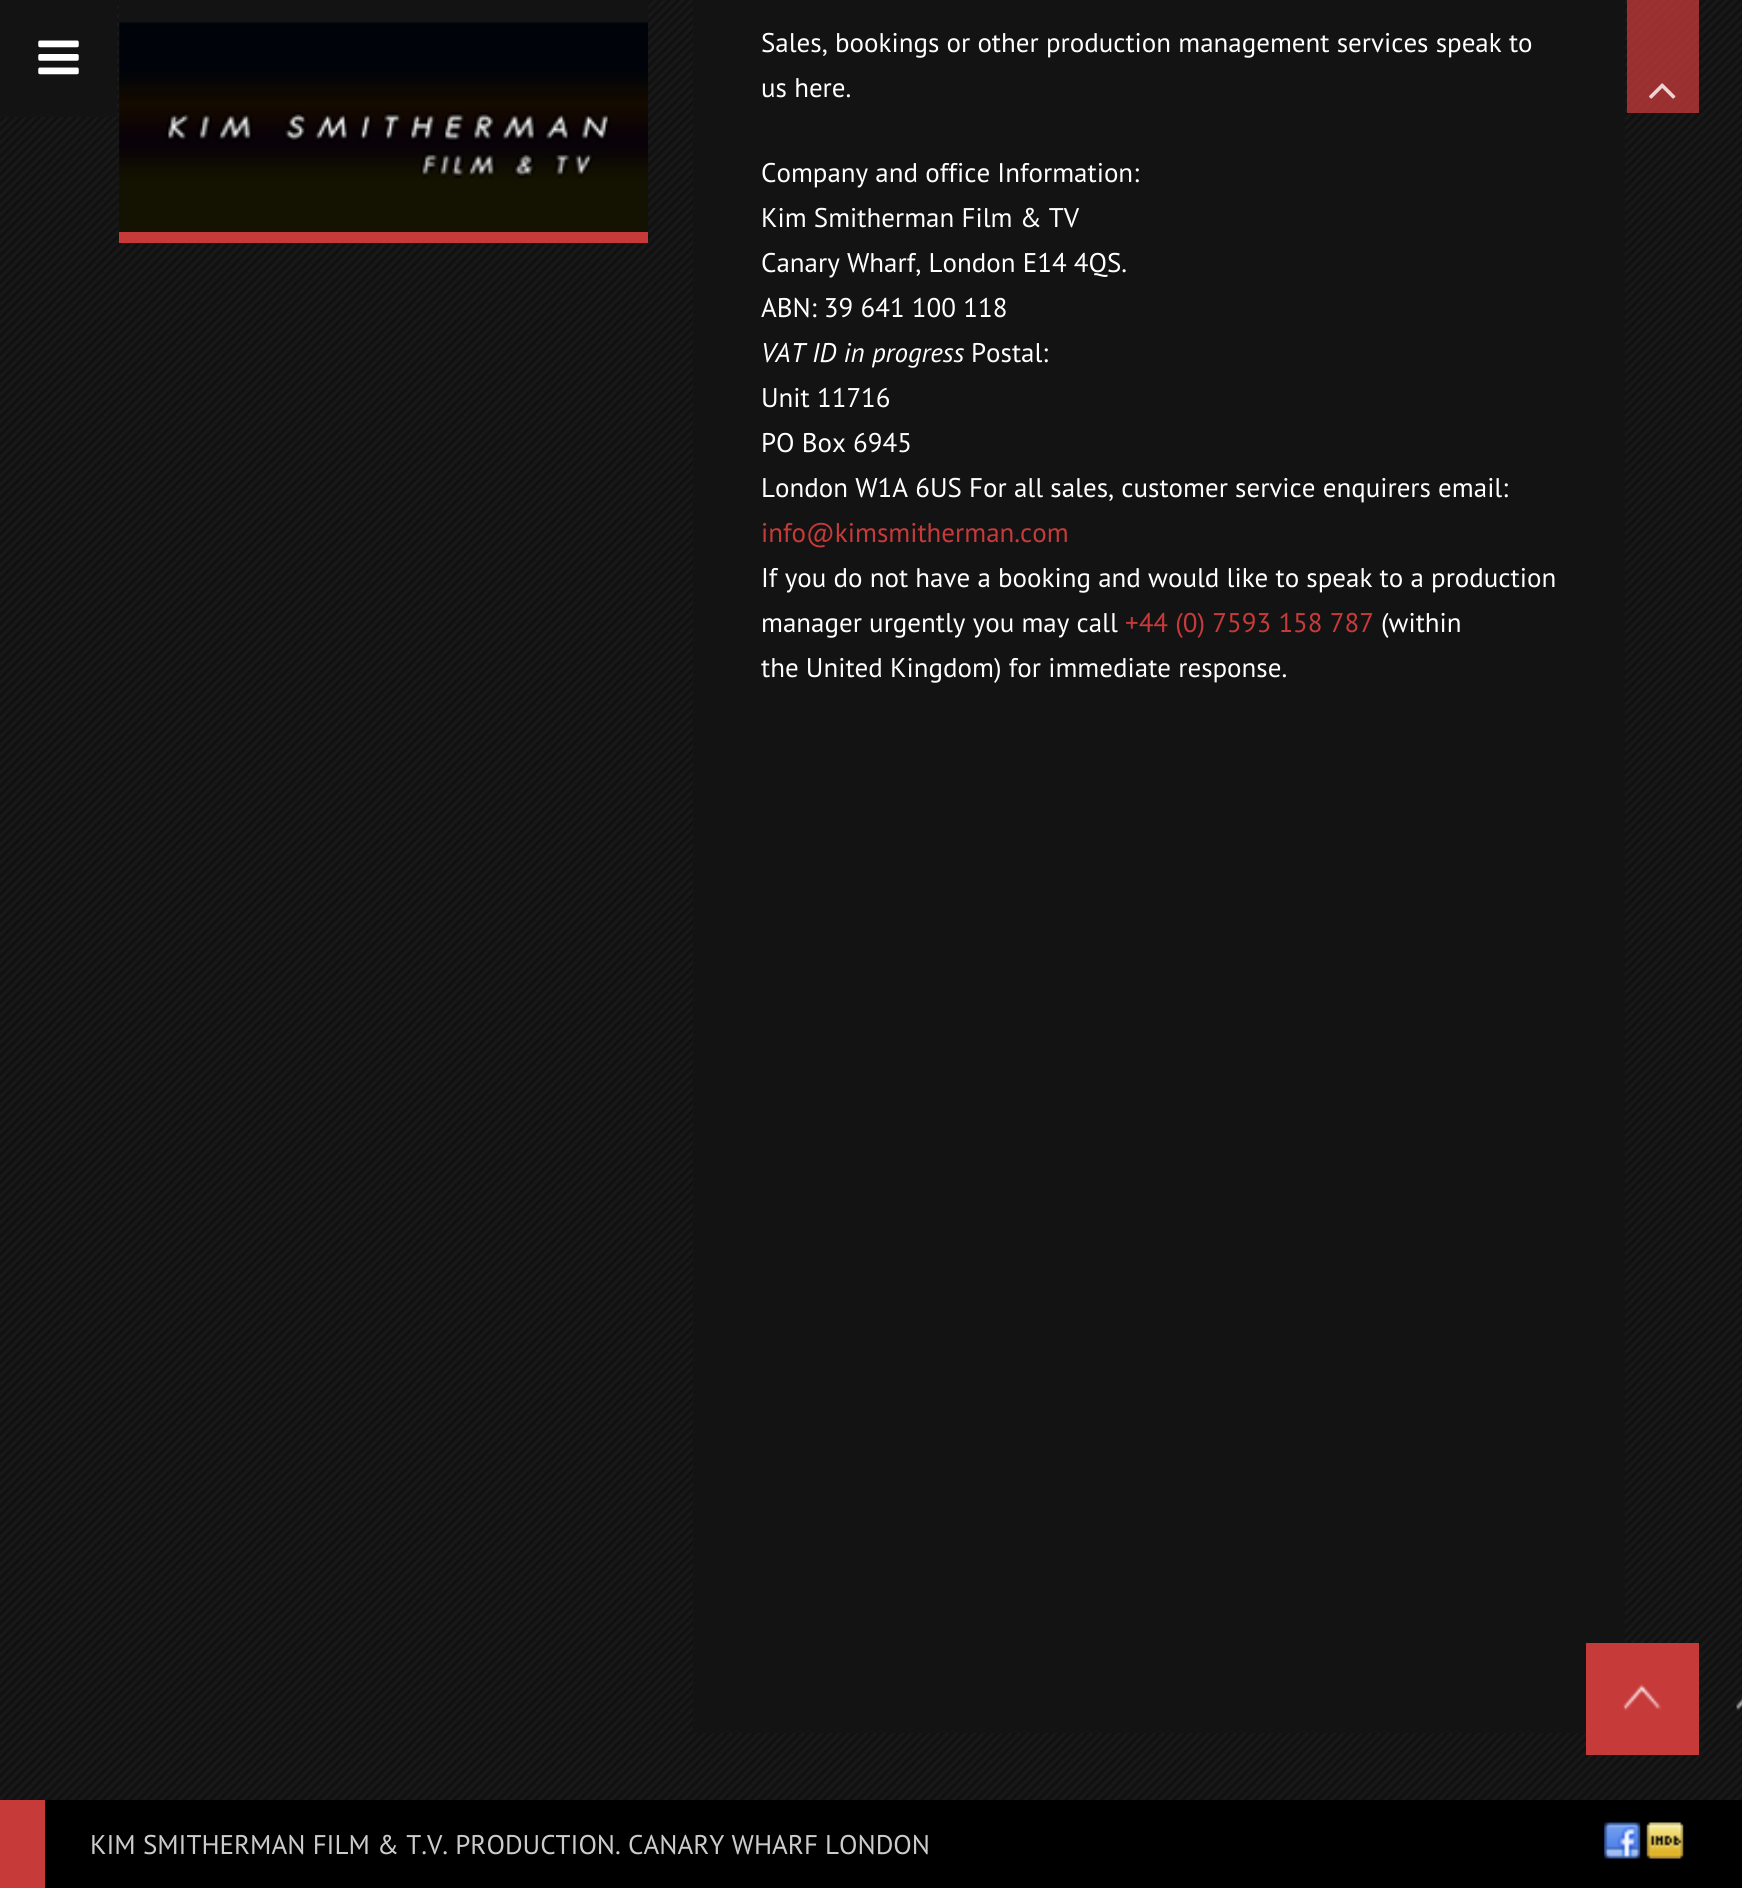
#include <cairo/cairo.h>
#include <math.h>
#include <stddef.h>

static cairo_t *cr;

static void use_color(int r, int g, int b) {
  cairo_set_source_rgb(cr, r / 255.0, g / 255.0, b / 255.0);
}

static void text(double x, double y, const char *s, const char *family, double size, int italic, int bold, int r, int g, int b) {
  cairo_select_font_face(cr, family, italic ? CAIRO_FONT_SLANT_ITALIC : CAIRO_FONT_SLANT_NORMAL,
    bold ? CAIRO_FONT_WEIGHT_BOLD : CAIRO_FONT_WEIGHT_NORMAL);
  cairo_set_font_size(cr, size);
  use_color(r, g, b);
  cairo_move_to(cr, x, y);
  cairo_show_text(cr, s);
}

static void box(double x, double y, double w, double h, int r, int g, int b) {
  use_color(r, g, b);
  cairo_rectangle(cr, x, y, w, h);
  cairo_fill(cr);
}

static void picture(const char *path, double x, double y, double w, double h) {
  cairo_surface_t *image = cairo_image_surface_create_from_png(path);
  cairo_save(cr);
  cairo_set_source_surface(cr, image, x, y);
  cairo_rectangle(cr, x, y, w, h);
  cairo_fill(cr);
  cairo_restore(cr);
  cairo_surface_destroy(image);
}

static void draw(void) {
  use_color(26, 26, 26);
  cairo_paint(cr);
  picture("img_01.png", 0, 0, 1742, 1800);
  cairo_set_source_rgba(cr, 0.078, 0.078, 0.078, 0.95);
  cairo_rectangle(cr, 0, 0, 117, 117);
  cairo_fill(cr);
  picture("img_02.png", 38, 40, 41, 35);
  cairo_set_source_rgba(cr, 0.078, 0.078, 0.078, 0.9);
  cairo_rectangle(cr, 119, 0, 529, 232);
  cairo_fill(cr);
  box(119, 232, 529, 11, 199, 58, 58);
  picture("img_03.png", 119, 22, 529, 210);
  cairo_set_source_rgba(cr, 0.078, 0.078, 0.078, 0.95);
  cairo_rectangle(cr, 693, 0, 932, 1733);
  cairo_fill(cr);
  cairo_set_source_rgba(cr, 0.78, 0.227, 0.227, 0.75);
  cairo_rectangle(cr, 1627, 0, 72, 113);
  cairo_fill(cr);
  picture("img_04.png", 1649, 83, 27, 16);
  box(1586, 1643, 113, 112, 199, 58, 58);
  picture("img_05.png", 1623, 1684, 119, 27);
  box(45, 1800, 1697, 88, 0, 0, 0);
  box(0, 1800, 45, 88, 199, 58, 58);
  picture("img_06.png", 1604, 1822, 37, 37);
  picture("img_07.png", 1646, 1822, 38, 37);
  text(761, 52, "Sales, bookings or other production management services speak to", "PT Sans", 27, 0, 0, 255, 255, 255);
  text(761, 97, "us here.", "PT Sans", 27, 0, 0, 255, 255, 255);
  text(761, 182, "Company and office Information:", "PT Sans", 27, 0, 0, 255, 255, 255);
  text(761, 227, "Kim Smitherman Film & TV", "PT Sans", 27, 0, 0, 255, 255, 255);
  text(761, 272, "Canary Wharf, London E14 4QS.", "PT Sans", 27, 0, 0, 255, 255, 255);
  text(761, 317, "ABN: 39 641 100 118", "PT Sans", 27, 0, 0, 255, 255, 255);
  text(761, 362, "VAT ID in progress", "PT Sans", 27, 1, 0, 255, 255, 255);
  text(971, 362, "Postal:", "PT Sans", 27, 0, 0, 255, 255, 255);
  text(761, 407, "Unit 11716", "PT Sans", 27, 0, 0, 255, 255, 255);
  text(761, 452, "PO Box 6945", "PT Sans", 27, 0, 0, 255, 255, 255);
  text(761, 497, "London W1A 6US For all sales, customer service enquirers email:", "PT Sans", 27, 0, 0, 255, 255, 255);
  text(761, 542, "info@kimsmitherman.com", "PT Sans", 27, 0, 0, 199, 58, 58);
  text(761, 587, "If you do not have a booking and would like to speak to a production", "PT Sans", 27, 0, 0, 255, 255, 255);
  text(761, 632, "manager urgently you may call", "PT Sans", 27, 0, 0, 255, 255, 255);
  text(1125, 632, "+44 (0) 7593 158 787", "PT Sans", 27, 0, 0, 199, 58, 58);
  text(1381, 632, "(within", "PT Sans", 27, 0, 0, 255, 255, 255);
  text(761, 677, "the United Kingdom) for immediate response.", "PT Sans", 27, 0, 0, 255, 255, 255);
  text(90, 1854, "KIM SMITHERMAN FILM & T.V. PRODUCTION. CANARY WHARF LONDON", "PT Sans", 27, 0, 0, 204, 204, 204);
}

int main(void) {
  cairo_surface_t *surface = cairo_image_surface_create(CAIRO_FORMAT_RGB24, 1742, 1888);
  cr = cairo_create(surface);
  cairo_font_options_t *options = cairo_font_options_create();
  cairo_font_options_set_hint_metrics(options, CAIRO_HINT_METRICS_OFF);
  cairo_font_options_set_hint_style(options, CAIRO_HINT_STYLE_NONE);
  cairo_set_font_options(cr, options);
  cairo_set_miter_limit(cr, 4);
  draw();
  cairo_surface_write_to_png(surface, "out.png");
  cairo_font_options_destroy(options);
  cairo_destroy(cr);
  cairo_surface_destroy(surface);
  return 0;
}
